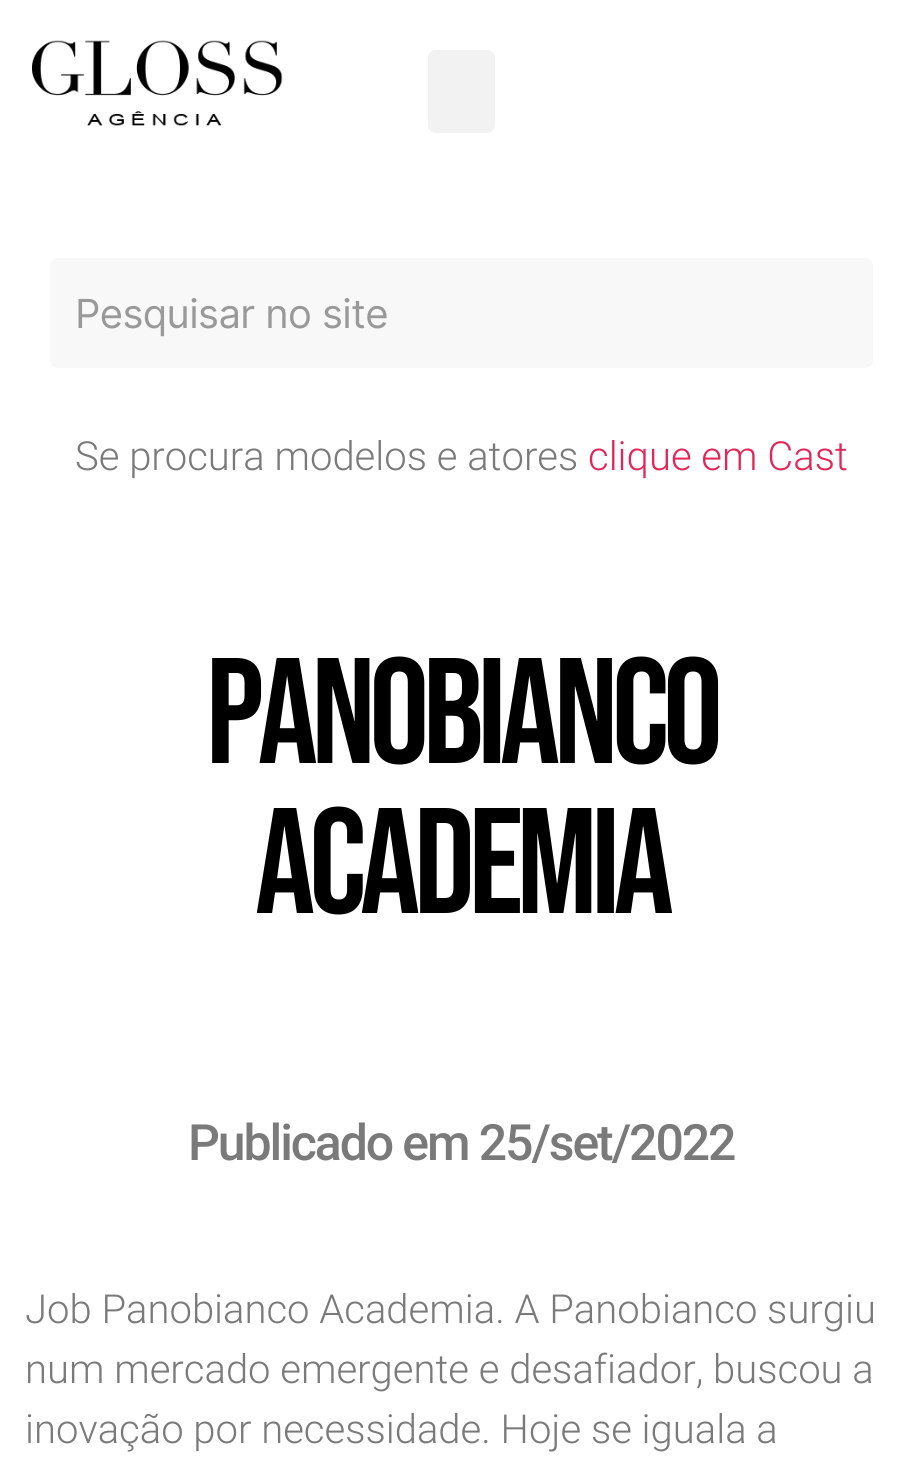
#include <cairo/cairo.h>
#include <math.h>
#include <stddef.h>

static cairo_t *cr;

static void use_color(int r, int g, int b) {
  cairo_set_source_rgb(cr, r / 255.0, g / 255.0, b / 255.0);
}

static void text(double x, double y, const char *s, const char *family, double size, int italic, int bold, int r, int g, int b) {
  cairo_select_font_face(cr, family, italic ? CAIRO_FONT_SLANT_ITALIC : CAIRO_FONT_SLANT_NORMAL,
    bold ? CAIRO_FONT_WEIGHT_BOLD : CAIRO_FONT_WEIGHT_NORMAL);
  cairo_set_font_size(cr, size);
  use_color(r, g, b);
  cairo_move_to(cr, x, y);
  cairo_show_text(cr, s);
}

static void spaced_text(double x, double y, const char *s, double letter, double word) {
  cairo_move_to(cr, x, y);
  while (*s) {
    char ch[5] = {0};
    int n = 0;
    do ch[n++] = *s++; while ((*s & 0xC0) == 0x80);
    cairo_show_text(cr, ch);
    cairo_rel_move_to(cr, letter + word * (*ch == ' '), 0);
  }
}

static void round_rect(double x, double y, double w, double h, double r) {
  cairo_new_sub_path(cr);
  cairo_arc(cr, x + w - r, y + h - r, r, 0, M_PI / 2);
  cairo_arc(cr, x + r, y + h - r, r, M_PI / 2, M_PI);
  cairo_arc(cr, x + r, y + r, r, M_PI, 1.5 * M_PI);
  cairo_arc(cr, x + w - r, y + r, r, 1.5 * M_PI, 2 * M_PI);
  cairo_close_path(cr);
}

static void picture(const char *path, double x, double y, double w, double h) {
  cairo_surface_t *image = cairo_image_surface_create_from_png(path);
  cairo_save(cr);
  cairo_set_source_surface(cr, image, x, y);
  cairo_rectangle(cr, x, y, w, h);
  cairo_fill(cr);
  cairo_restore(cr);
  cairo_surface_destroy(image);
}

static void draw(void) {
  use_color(255, 255, 255);
  cairo_paint(cr);
  picture("img_01.png", 32, 40, 251, 86);
  use_color(242, 242, 242);
  round_rect(428, 50, 67, 83, 8);
  cairo_fill(cr);
  use_color(248, 248, 248);
  round_rect(50, 258, 823, 110, 8);
  cairo_fill(cr);
  cairo_select_font_face(cr, "Inter", CAIRO_FONT_SLANT_NORMAL, CAIRO_FONT_WEIGHT_NORMAL);
  cairo_set_font_size(cr, 40);
  use_color(153, 153, 153);
  spaced_text(75, 328, "Pesquisar no site", -0.6, 0);
  text(75, 470, "Se procura modelos e atores", "Roboto Light", 40, 0, 0, 122, 122, 122);
  text(588, 470, "clique em Cast", "Roboto Light", 40, 0, 0, 226, 38, 88);
  cairo_select_font_face(cr, "Bebas Neue", CAIRO_FONT_SLANT_NORMAL, CAIRO_FONT_WEIGHT_NORMAL);
  cairo_set_font_size(cr, 150);
  use_color(0, 0, 0);
  spaced_text(206, 763, "Panobianco", -6.25, 0);
  spaced_text(255, 913, "Academia", -6.25, 0);
  cairo_select_font_face(cr, "Roboto Medium", CAIRO_FONT_SLANT_NORMAL, CAIRO_FONT_WEIGHT_NORMAL);
  cairo_set_font_size(cr, 50);
  use_color(122, 122, 122);
  spaced_text(188, 1160, "Publicado em 25/set/2022", -2.1, 0);
  text(25, 1323, "Job Panobianco Academia. A Panobianco surgiu", "Roboto Light", 40, 0, 0, 122, 122, 122);
  text(25, 1383, "num mercado emergente e desafiador, buscou a", "Roboto Light", 40, 0, 0, 122, 122, 122);
  text(25, 1443, "inovação por necessidade. Hoje se iguala a", "Roboto Light", 40, 0, 0, 122, 122, 122);
}

int main(void) {
  cairo_surface_t *surface = cairo_image_surface_create(CAIRO_FORMAT_RGB24, 921, 1462);
  cr = cairo_create(surface);
  cairo_font_options_t *options = cairo_font_options_create();
  cairo_font_options_set_hint_metrics(options, CAIRO_HINT_METRICS_OFF);
  cairo_font_options_set_hint_style(options, CAIRO_HINT_STYLE_NONE);
  cairo_set_font_options(cr, options);
  cairo_set_miter_limit(cr, 4);
  draw();
  cairo_surface_write_to_png(surface, "out.png");
  cairo_font_options_destroy(options);
  cairo_destroy(cr);
  cairo_surface_destroy(surface);
  return 0;
}
